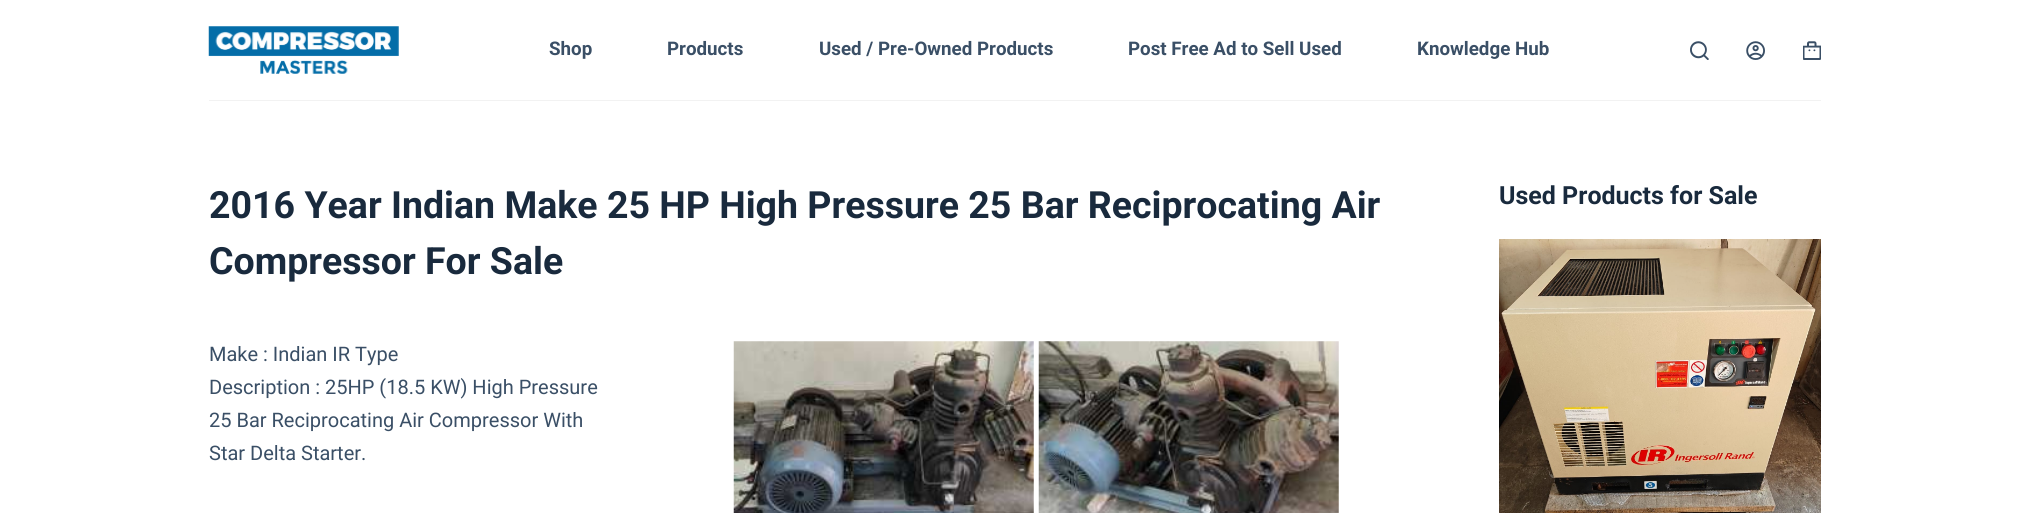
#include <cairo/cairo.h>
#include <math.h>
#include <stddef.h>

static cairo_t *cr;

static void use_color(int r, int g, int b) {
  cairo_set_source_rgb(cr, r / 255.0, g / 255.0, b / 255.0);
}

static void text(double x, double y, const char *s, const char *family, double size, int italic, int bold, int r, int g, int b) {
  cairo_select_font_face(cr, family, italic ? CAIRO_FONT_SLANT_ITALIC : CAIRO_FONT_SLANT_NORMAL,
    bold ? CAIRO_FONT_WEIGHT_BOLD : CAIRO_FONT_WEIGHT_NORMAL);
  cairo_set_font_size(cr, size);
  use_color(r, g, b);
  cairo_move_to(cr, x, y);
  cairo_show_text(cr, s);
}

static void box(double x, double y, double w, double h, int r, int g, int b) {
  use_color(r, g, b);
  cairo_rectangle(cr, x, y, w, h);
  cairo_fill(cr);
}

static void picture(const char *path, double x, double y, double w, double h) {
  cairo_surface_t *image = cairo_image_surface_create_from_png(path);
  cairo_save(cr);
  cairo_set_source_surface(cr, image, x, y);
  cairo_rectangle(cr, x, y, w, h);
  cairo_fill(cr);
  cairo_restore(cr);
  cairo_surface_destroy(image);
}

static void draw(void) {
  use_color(255, 255, 255);
  cairo_paint(cr);
  box(209, 100, 1612, 1, 242, 242, 242);
  picture("img_01.png", 208, 26, 191, 48);
  picture("img_02.png", 1690, 41, 19, 19);
  picture("img_03.png", 1746, 41, 19, 19);
  picture("img_04.png", 1803, 41, 18, 19);
  picture("img_05.png", 733, 341, 301, 172);
  picture("img_06.png", 1038, 341, 301, 172);
  picture("img_07.png", 1499, 239, 322, 274);
  text(549, 55, "Shop", "Roboto", 18.75, 0, 1, 58, 79, 102);
  text(667, 55, "Products", "Roboto", 18.75, 0, 1, 58, 79, 102);
  text(819, 55, "Used / Pre-Owned Products", "Roboto", 18.75, 0, 1, 58, 79, 102);
  text(1128, 55, "Post Free Ad to Sell Used", "Roboto", 18.75, 0, 1, 58, 79, 102);
  text(1417, 55, "Knowledge Hub", "Roboto", 18.75, 0, 1, 58, 79, 102);
  text(209, 218, "2016 Year Indian Make 25 HP High Pressure 25 Bar Reciprocating Air", "Roboto", 37.5, 0, 1, 25, 42, 61);
  text(209, 274, "Compressor For Sale", "Roboto", 37.5, 0, 1, 25, 42, 61);
  text(209, 361, "Make : Indian IR Type", "Roboto", 20, 0, 0, 58, 79, 102);
  text(209, 394, "Description : 25HP (18.5 KW) High Pressure", "Roboto", 20, 0, 0, 58, 79, 102);
  text(209, 427, "25 Bar Reciprocating Air Compressor With", "Roboto", 20, 0, 0, 58, 79, 102);
  text(209, 460, "Star Delta Starter.", "Roboto", 20, 0, 0, 58, 79, 102);
  text(1499, 204, "Used Products for Sale", "Roboto", 25, 0, 1, 25, 42, 61);
}

int main(void) {
  cairo_surface_t *surface = cairo_image_surface_create(CAIRO_FORMAT_RGB24, 2029, 513);
  cr = cairo_create(surface);
  cairo_font_options_t *options = cairo_font_options_create();
  cairo_font_options_set_hint_metrics(options, CAIRO_HINT_METRICS_OFF);
  cairo_font_options_set_hint_style(options, CAIRO_HINT_STYLE_NONE);
  cairo_set_font_options(cr, options);
  cairo_set_miter_limit(cr, 4);
  draw();
  cairo_surface_write_to_png(surface, "out.png");
  cairo_font_options_destroy(options);
  cairo_destroy(cr);
  cairo_surface_destroy(surface);
  return 0;
}
